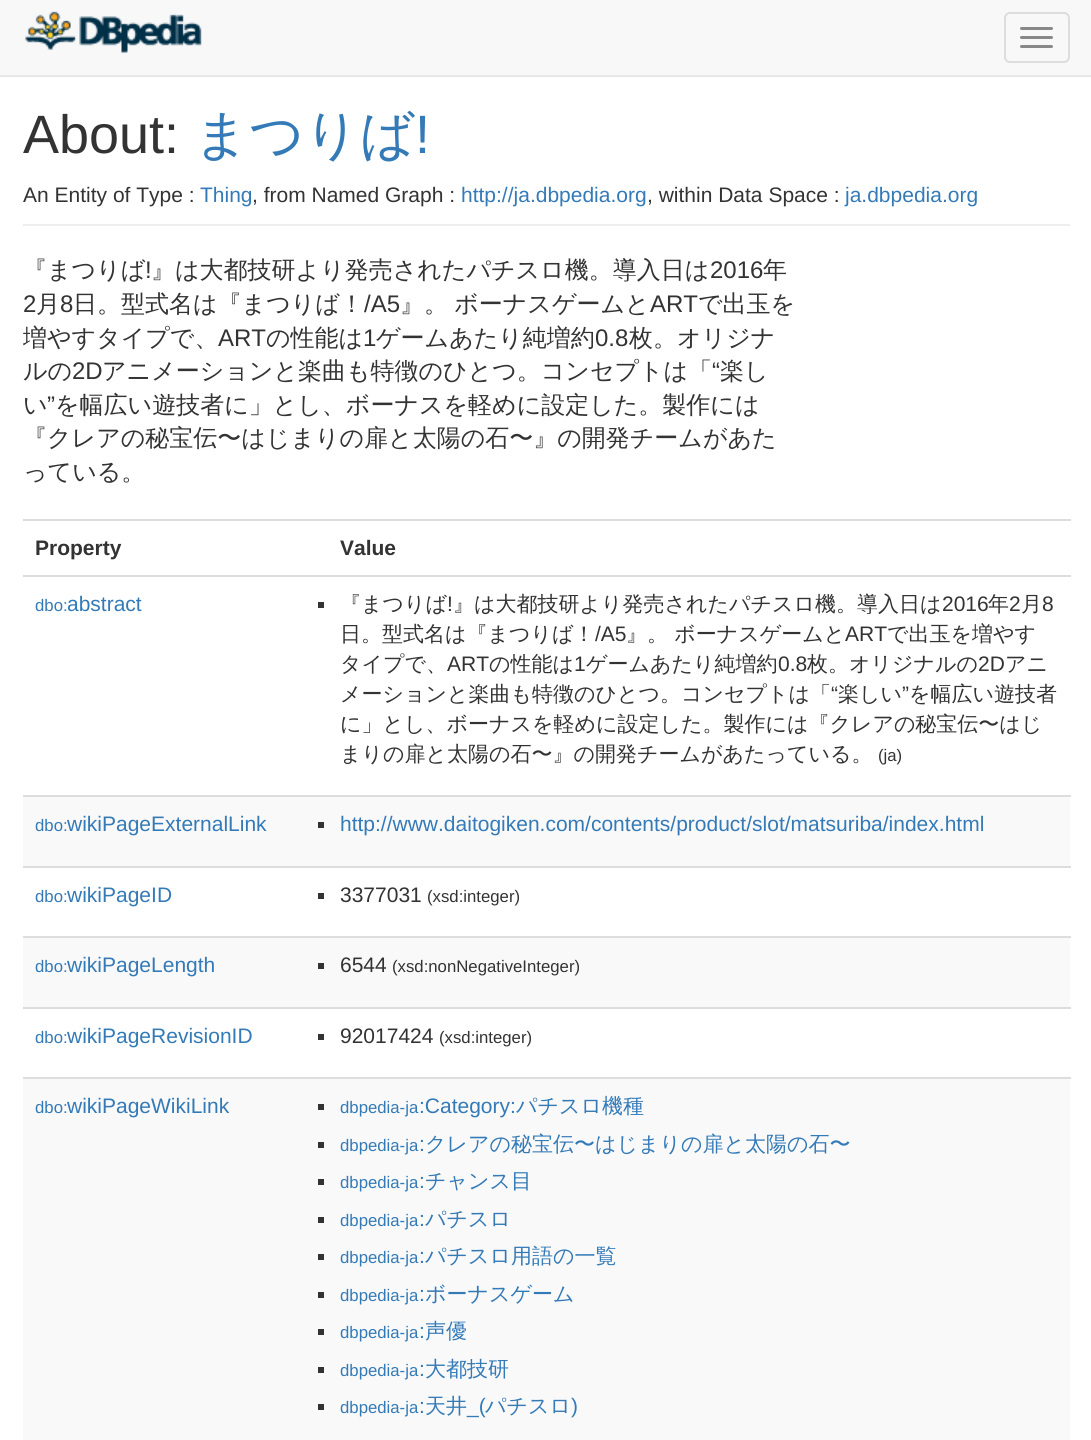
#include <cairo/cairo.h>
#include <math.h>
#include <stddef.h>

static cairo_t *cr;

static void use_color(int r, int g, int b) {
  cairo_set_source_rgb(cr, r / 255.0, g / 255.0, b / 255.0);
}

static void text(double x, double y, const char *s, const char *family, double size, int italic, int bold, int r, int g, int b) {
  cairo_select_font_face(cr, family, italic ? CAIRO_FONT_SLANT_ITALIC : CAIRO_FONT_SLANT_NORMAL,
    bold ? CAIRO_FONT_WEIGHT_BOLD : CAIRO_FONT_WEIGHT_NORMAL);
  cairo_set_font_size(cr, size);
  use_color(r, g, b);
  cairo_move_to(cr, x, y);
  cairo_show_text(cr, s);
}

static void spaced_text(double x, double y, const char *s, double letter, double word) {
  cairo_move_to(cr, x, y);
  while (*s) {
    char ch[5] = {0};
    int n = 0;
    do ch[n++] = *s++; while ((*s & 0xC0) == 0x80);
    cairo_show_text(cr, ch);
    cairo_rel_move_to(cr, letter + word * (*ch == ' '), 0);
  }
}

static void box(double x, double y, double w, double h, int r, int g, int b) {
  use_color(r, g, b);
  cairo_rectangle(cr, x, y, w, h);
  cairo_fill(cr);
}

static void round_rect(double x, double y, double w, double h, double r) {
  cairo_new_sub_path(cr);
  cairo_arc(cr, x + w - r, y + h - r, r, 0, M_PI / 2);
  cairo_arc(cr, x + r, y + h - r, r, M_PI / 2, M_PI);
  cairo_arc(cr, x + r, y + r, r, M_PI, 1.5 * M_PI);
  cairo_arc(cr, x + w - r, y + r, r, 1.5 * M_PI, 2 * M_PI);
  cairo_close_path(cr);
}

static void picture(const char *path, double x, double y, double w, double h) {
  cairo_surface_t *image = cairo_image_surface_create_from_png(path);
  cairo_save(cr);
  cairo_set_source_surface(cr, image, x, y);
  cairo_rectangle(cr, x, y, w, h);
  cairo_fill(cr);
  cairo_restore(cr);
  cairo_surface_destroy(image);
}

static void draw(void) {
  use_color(255, 255, 255);
  cairo_paint(cr);
  box(0, 0, 1091, 75, 248, 248, 248);
  box(0, 75, 1091, 2, 231, 231, 231);
  picture("img_01.png", 25, 11, 177, 42);
  round_rect(1005, 13, 64, 49, 5);
  use_color(221, 221, 221);
  cairo_stroke(cr);
  use_color(136, 136, 136);
  round_rect(1020, 27, 33, 3, 1.5);
  cairo_fill(cr);
  round_rect(1020, 36, 33, 3, 1.5);
  cairo_fill(cr);
  round_rect(1020, 45, 33, 3, 1.5);
  cairo_fill(cr);
  box(23, 224, 1047, 2, 238, 238, 238);
  box(23, 519, 1048, 2, 221, 221, 221);
  box(23, 575, 1048, 2, 221, 221, 221);
  box(318, 602, 6, 6, 51, 51, 51);
  box(23, 797, 1047, 69, 249, 249, 249);
  box(23, 795, 1048, 2, 221, 221, 221);
  box(318, 822, 6, 6, 51, 51, 51);
  box(23, 866, 1048, 2, 221, 221, 221);
  box(318, 893, 6, 6, 51, 51, 51);
  box(23, 938, 1047, 69, 249, 249, 249);
  box(23, 936, 1048, 2, 221, 221, 221);
  box(318, 963, 6, 6, 51, 51, 51);
  box(23, 1007, 1048, 2, 221, 221, 221);
  box(318, 1034, 6, 6, 51, 51, 51);
  box(23, 1079, 1047, 361, 249, 249, 249);
  box(23, 1077, 1048, 2, 221, 221, 221);
  box(318, 1104, 6, 6, 51, 51, 51);
  box(318, 1142, 6, 6, 51, 51, 51);
  box(318, 1179, 6, 6, 51, 51, 51);
  box(318, 1217, 6, 6, 51, 51, 51);
  box(318, 1254, 6, 6, 51, 51, 51);
  box(318, 1292, 6, 6, 51, 51, 51);
  box(318, 1329, 6, 6, 51, 51, 51);
  box(318, 1367, 6, 6, 51, 51, 51);
  box(318, 1404, 6, 6, 51, 51, 51);
  text(23, 153, "About:", "Liberation Sans", 54, 0, 0, 51, 51, 51);
  text(194, 153, "まつりば", "WenQuanYi Zen Hei Medium", 54, 0, 0, 51, 122, 183);
  text(415, 153, "!", "Liberation Sans", 54, 0, 0, 51, 122, 183);
  text(23, 202, "An Entity of Type :", "Liberation Sans", 21, 0, 0, 51, 51, 51);
  text(200, 202, "Thing", "Liberation Sans", 21, 0, 0, 51, 122, 183);
  text(252, 202, ", from Named Graph :", "Liberation Sans", 21, 0, 0, 51, 51, 51);
  text(461, 202, "http://ja.dbpedia.org", "Liberation Sans", 21, 0, 0, 51, 122, 183);
  text(647, 202, ", within Data Space :", "Liberation Sans", 21, 0, 0, 51, 51, 51);
  text(845, 202, "ja.dbpedia.org", "Liberation Sans", 21, 0, 0, 51, 122, 183);
  text(23, 278, "『まつりば", "WenQuanYi Zen Hei Medium", 24, 0, 0, 51, 51, 51);
  text(145, 278, "!", "Liberation Sans", 24, 0, 0, 51, 51, 51);
  text(151, 278, "』は大都技研より発売されたパチスロ機。導入日は", "WenQuanYi Zen Hei Medium", 24, 0, 0, 51, 51, 51);
  text(710, 278, "2016", "Liberation Sans", 24, 0, 0, 51, 51, 51);
  text(763, 278, "年", "WenQuanYi Zen Hei Medium", 24, 0, 0, 51, 51, 51);
  text(23, 312, "2", "Liberation Sans", 24, 0, 0, 51, 51, 51);
  text(36, 312, "月", "WenQuanYi Zen Hei Medium", 24, 0, 0, 51, 51, 51);
  text(60, 312, "8", "Liberation Sans", 24, 0, 0, 51, 51, 51);
  text(73, 312, "日。型式名は『まつりば！", "WenQuanYi Zen Hei Medium", 24, 0, 0, 51, 51, 51);
  text(364, 312, "/A5", "Liberation Sans", 24, 0, 0, 51, 51, 51);
  cairo_select_font_face(cr, "WenQuanYi Zen Hei Medium", CAIRO_FONT_SLANT_NORMAL, CAIRO_FONT_WEIGHT_NORMAL);
  spaced_text(400, 312, "』。 ボーナスゲームと", 0, -1);
  text(650, 312, "ART", "Liberation Sans", 24, 0, 0, 51, 51, 51);
  text(698, 312, "で出玉を", "WenQuanYi Zen Hei Medium", 24, 0, 0, 51, 51, 51);
  text(23, 346, "増やすタイプで、", "WenQuanYi Zen Hei Medium", 24, 0, 0, 51, 51, 51);
  text(218, 346, "ART", "Liberation Sans", 24, 0, 0, 51, 51, 51);
  text(266, 346, "の性能は", "WenQuanYi Zen Hei Medium", 24, 0, 0, 51, 51, 51);
  text(363, 346, "1", "Liberation Sans", 24, 0, 0, 51, 51, 51);
  text(376, 346, "ゲームあたり純増約", "WenQuanYi Zen Hei Medium", 24, 0, 0, 51, 51, 51);
  text(595, 346, "0.8", "Liberation Sans", 24, 0, 0, 51, 51, 51);
  text(629, 346, "枚。オリジナ", "WenQuanYi Zen Hei Medium", 24, 0, 0, 51, 51, 51);
  text(23, 379, "ルの", "WenQuanYi Zen Hei Medium", 24, 0, 0, 51, 51, 51);
  text(72, 379, "2D", "Liberation Sans", 24, 0, 0, 51, 51, 51);
  text(102, 379, "アニメーションと楽曲も特徴のひとつ。コンセプトは「", "WenQuanYi Zen Hei Medium", 24, 0, 0, 51, 51, 51);
  text(712, 379, "“", "Liberation Sans", 24, 0, 0, 51, 51, 51);
  text(720, 379, "楽し", "WenQuanYi Zen Hei Medium", 24, 0, 0, 51, 51, 51);
  text(23, 413, "い", "WenQuanYi Zen Hei Medium", 24, 0, 0, 51, 51, 51);
  text(47, 413, "”", "Liberation Sans", 24, 0, 0, 51, 51, 51);
  text(55, 413, "を幅広い遊技者に」とし、ボーナスを軽めに設定した。製作には", "WenQuanYi Zen Hei Medium", 24, 0, 0, 51, 51, 51);
  text(23, 446, "『クレアの秘宝伝〜はじまりの扉と太陽の石〜』の開発チームがあた", "WenQuanYi Zen Hei Medium", 24, 0, 0, 51, 51, 51);
  text(23, 480, "っている。", "WenQuanYi Zen Hei Medium", 24, 0, 0, 51, 51, 51);
  text(35, 555, "Property", "Liberation Sans", 21, 0, 1, 51, 51, 51);
  text(340, 555, "Value", "Liberation Sans", 21, 0, 1, 51, 51, 51);
  text(35, 611, "dbo:", "Liberation Sans", 16.75, 0, 0, 51, 122, 183);
  text(67, 611, "abstract", "Liberation Sans", 21, 0, 0, 51, 122, 183);
  text(340, 611, "『まつりば", "WenQuanYi Zen Hei Medium", 21, 0, 0, 51, 51, 51);
  text(447, 611, "!", "Liberation Sans", 21, 0, 0, 51, 51, 51);
  text(453, 611, "』は大都技研より発売されたパチスロ機。導入日は", "WenQuanYi Zen Hei Medium", 21, 0, 0, 51, 51, 51);
  text(942, 611, "2016", "Liberation Sans", 21, 0, 0, 51, 51, 51);
  text(988, 611, "年", "WenQuanYi Zen Hei Medium", 21, 0, 0, 51, 51, 51);
  text(1009, 611, "2", "Liberation Sans", 21, 0, 0, 51, 51, 51);
  text(1021, 611, "月", "WenQuanYi Zen Hei Medium", 21, 0, 0, 51, 51, 51);
  text(1042, 611, "8", "Liberation Sans", 21, 0, 0, 51, 51, 51);
  text(340, 641, "日。型式名は『まつりば！", "WenQuanYi Zen Hei Medium", 21, 0, 0, 51, 51, 51);
  text(595, 641, "/A5", "Liberation Sans", 21, 0, 0, 51, 51, 51);
  text(626, 641, "』。 ボーナスゲームと", "WenQuanYi Zen Hei Medium", 21, 0, 0, 51, 51, 51);
  text(845, 641, "ART", "Liberation Sans", 21, 0, 0, 51, 51, 51);
  text(887, 641, "で出玉を増やす", "WenQuanYi Zen Hei Medium", 21, 0, 0, 51, 51, 51);
  text(340, 671, "タイプで、", "WenQuanYi Zen Hei Medium", 21, 0, 0, 51, 51, 51);
  text(447, 671, "ART", "Liberation Sans", 21, 0, 0, 51, 51, 51);
  text(489, 671, "の性能は", "WenQuanYi Zen Hei Medium", 21, 0, 0, 51, 51, 51);
  text(574, 671, "1", "Liberation Sans", 21, 0, 0, 51, 51, 51);
  text(586, 671, "ゲームあたり純増約", "WenQuanYi Zen Hei Medium", 21, 0, 0, 51, 51, 51);
  text(778, 671, "0.8", "Liberation Sans", 21, 0, 0, 51, 51, 51);
  text(807, 671, "枚。オリジナルの", "WenQuanYi Zen Hei Medium", 21, 0, 0, 51, 51, 51);
  text(978, 671, "2D", "Liberation Sans", 21, 0, 0, 51, 51, 51);
  text(1005, 671, "アニ", "WenQuanYi Zen Hei Medium", 21, 0, 0, 51, 51, 51);
  text(340, 701, "メーションと楽曲も特徴のひとつ。コンセプトは「", "WenQuanYi Zen Hei Medium", 21, 0, 0, 51, 51, 51);
  text(831, 701, "“", "Liberation Sans", 21, 0, 0, 51, 51, 51);
  text(838, 701, "楽しい", "WenQuanYi Zen Hei Medium", 21, 0, 0, 51, 51, 51);
  text(902, 701, "”", "Liberation Sans", 21, 0, 0, 51, 51, 51);
  text(909, 701, "を幅広い遊技者", "WenQuanYi Zen Hei Medium", 21, 0, 0, 51, 51, 51);
  text(340, 731, "に」とし、ボーナスを軽めに設定した。製作には『クレアの秘宝伝〜はじ", "WenQuanYi Zen Hei Medium", 21, 0, 0, 51, 51, 51);
  text(340, 761, "まりの扉と太陽の石〜』の開発チームがあたっている。", "WenQuanYi Zen Hei Medium", 21, 0, 0, 51, 51, 51);
  text(878, 761, "(ja)", "Liberation Sans", 16.75, 0, 0, 51, 51, 51);
  text(35, 831, "dbo:", "Liberation Sans", 16.75, 0, 0, 51, 122, 183);
  text(67, 831, "wikiPageExternalLink", "Liberation Sans", 21, 0, 0, 51, 122, 183);
  text(340, 831, "http://www.daitogiken.com/contents/product/slot/matsuriba/index.html", "Liberation Sans", 21, 0, 0, 51, 122, 183);
  text(35, 902, "dbo:", "Liberation Sans", 16.75, 0, 0, 51, 122, 183);
  text(67, 902, "wikiPageID", "Liberation Sans", 21, 0, 0, 51, 122, 183);
  text(340, 902, "3377031", "Liberation Sans", 21, 0, 0, 51, 51, 51);
  text(427, 902, "(xsd:integer)", "Liberation Sans", 16.75, 0, 0, 51, 51, 51);
  text(35, 972, "dbo:", "Liberation Sans", 16.75, 0, 0, 51, 122, 183);
  text(67, 972, "wikiPageLength", "Liberation Sans", 21, 0, 0, 51, 122, 183);
  text(340, 972, "6544", "Liberation Sans", 21, 0, 0, 51, 51, 51);
  text(392, 972, "(xsd:nonNegativeInteger)", "Liberation Sans", 16.75, 0, 0, 51, 51, 51);
  text(35, 1043, "dbo:", "Liberation Sans", 16.75, 0, 0, 51, 122, 183);
  text(67, 1043, "wikiPageRevisionID", "Liberation Sans", 21, 0, 0, 51, 122, 183);
  text(340, 1043, "92017424", "Liberation Sans", 21, 0, 0, 51, 51, 51);
  text(439, 1043, "(xsd:integer)", "Liberation Sans", 16.75, 0, 0, 51, 51, 51);
  text(35, 1113, "dbo:", "Liberation Sans", 16.75, 0, 0, 51, 122, 183);
  text(67, 1113, "wikiPageWikiLink", "Liberation Sans", 21, 0, 0, 51, 122, 183);
  text(340, 1113, "dbpedia-ja", "Liberation Sans", 16.75, 0, 0, 51, 122, 183);
  text(419, 1113, ":Category:", "Liberation Sans", 21, 0, 0, 51, 122, 183);
  text(516, 1113, "パチスロ機種", "WenQuanYi Zen Hei Medium", 21, 0, 0, 51, 122, 183);
  text(340, 1151, "dbpedia-ja", "Liberation Sans", 16.75, 0, 0, 51, 122, 183);
  text(419, 1151, ":", "Liberation Sans", 21, 0, 0, 51, 122, 183);
  text(425, 1151, "クレアの秘宝伝〜はじまりの扉と太陽の石〜", "WenQuanYi Zen Hei Medium", 21, 0, 0, 51, 122, 183);
  text(340, 1188, "dbpedia-ja", "Liberation Sans", 16.75, 0, 0, 51, 122, 183);
  text(419, 1188, ":", "Liberation Sans", 21, 0, 0, 51, 122, 183);
  text(425, 1188, "チャンス目", "WenQuanYi Zen Hei Medium", 21, 0, 0, 51, 122, 183);
  text(340, 1226, "dbpedia-ja", "Liberation Sans", 16.75, 0, 0, 51, 122, 183);
  text(419, 1226, ":", "Liberation Sans", 21, 0, 0, 51, 122, 183);
  text(425, 1226, "パチスロ", "WenQuanYi Zen Hei Medium", 21, 0, 0, 51, 122, 183);
  text(340, 1263, "dbpedia-ja", "Liberation Sans", 16.75, 0, 0, 51, 122, 183);
  text(419, 1263, ":", "Liberation Sans", 21, 0, 0, 51, 122, 183);
  text(425, 1263, "パチスロ用語の一覧", "WenQuanYi Zen Hei Medium", 21, 0, 0, 51, 122, 183);
  text(340, 1301, "dbpedia-ja", "Liberation Sans", 16.75, 0, 0, 51, 122, 183);
  text(419, 1301, ":", "Liberation Sans", 21, 0, 0, 51, 122, 183);
  text(425, 1301, "ボーナスゲーム", "WenQuanYi Zen Hei Medium", 21, 0, 0, 51, 122, 183);
  text(340, 1338, "dbpedia-ja", "Liberation Sans", 16.75, 0, 0, 51, 122, 183);
  text(419, 1338, ":", "Liberation Sans", 21, 0, 0, 51, 122, 183);
  text(425, 1338, "声優", "WenQuanYi Zen Hei Medium", 21, 0, 0, 51, 122, 183);
  text(340, 1376, "dbpedia-ja", "Liberation Sans", 16.75, 0, 0, 51, 122, 183);
  text(419, 1376, ":", "Liberation Sans", 21, 0, 0, 51, 122, 183);
  text(425, 1376, "大都技研", "WenQuanYi Zen Hei Medium", 21, 0, 0, 51, 122, 183);
  text(340, 1413, "dbpedia-ja", "Liberation Sans", 16.75, 0, 0, 51, 122, 183);
  text(419, 1413, ":", "Liberation Sans", 21, 0, 0, 51, 122, 183);
  text(425, 1413, "天井", "WenQuanYi Zen Hei Medium", 21, 0, 0, 51, 122, 183);
  text(467, 1413, "_(", "Liberation Sans", 21, 0, 0, 51, 122, 183);
  text(485, 1413, "パチスロ", "WenQuanYi Zen Hei Medium", 21, 0, 0, 51, 122, 183);
  text(571, 1413, ")", "Liberation Sans", 21, 0, 0, 51, 122, 183);
}

int main(void) {
  cairo_surface_t *surface = cairo_image_surface_create(CAIRO_FORMAT_RGB24, 1091, 1440);
  cr = cairo_create(surface);
  cairo_font_options_t *options = cairo_font_options_create();
  cairo_font_options_set_hint_metrics(options, CAIRO_HINT_METRICS_OFF);
  cairo_font_options_set_hint_style(options, CAIRO_HINT_STYLE_NONE);
  cairo_set_font_options(cr, options);
  cairo_set_miter_limit(cr, 4);
  draw();
  cairo_surface_write_to_png(surface, "out.png");
  cairo_font_options_destroy(options);
  cairo_destroy(cr);
  cairo_surface_destroy(surface);
  return 0;
}
